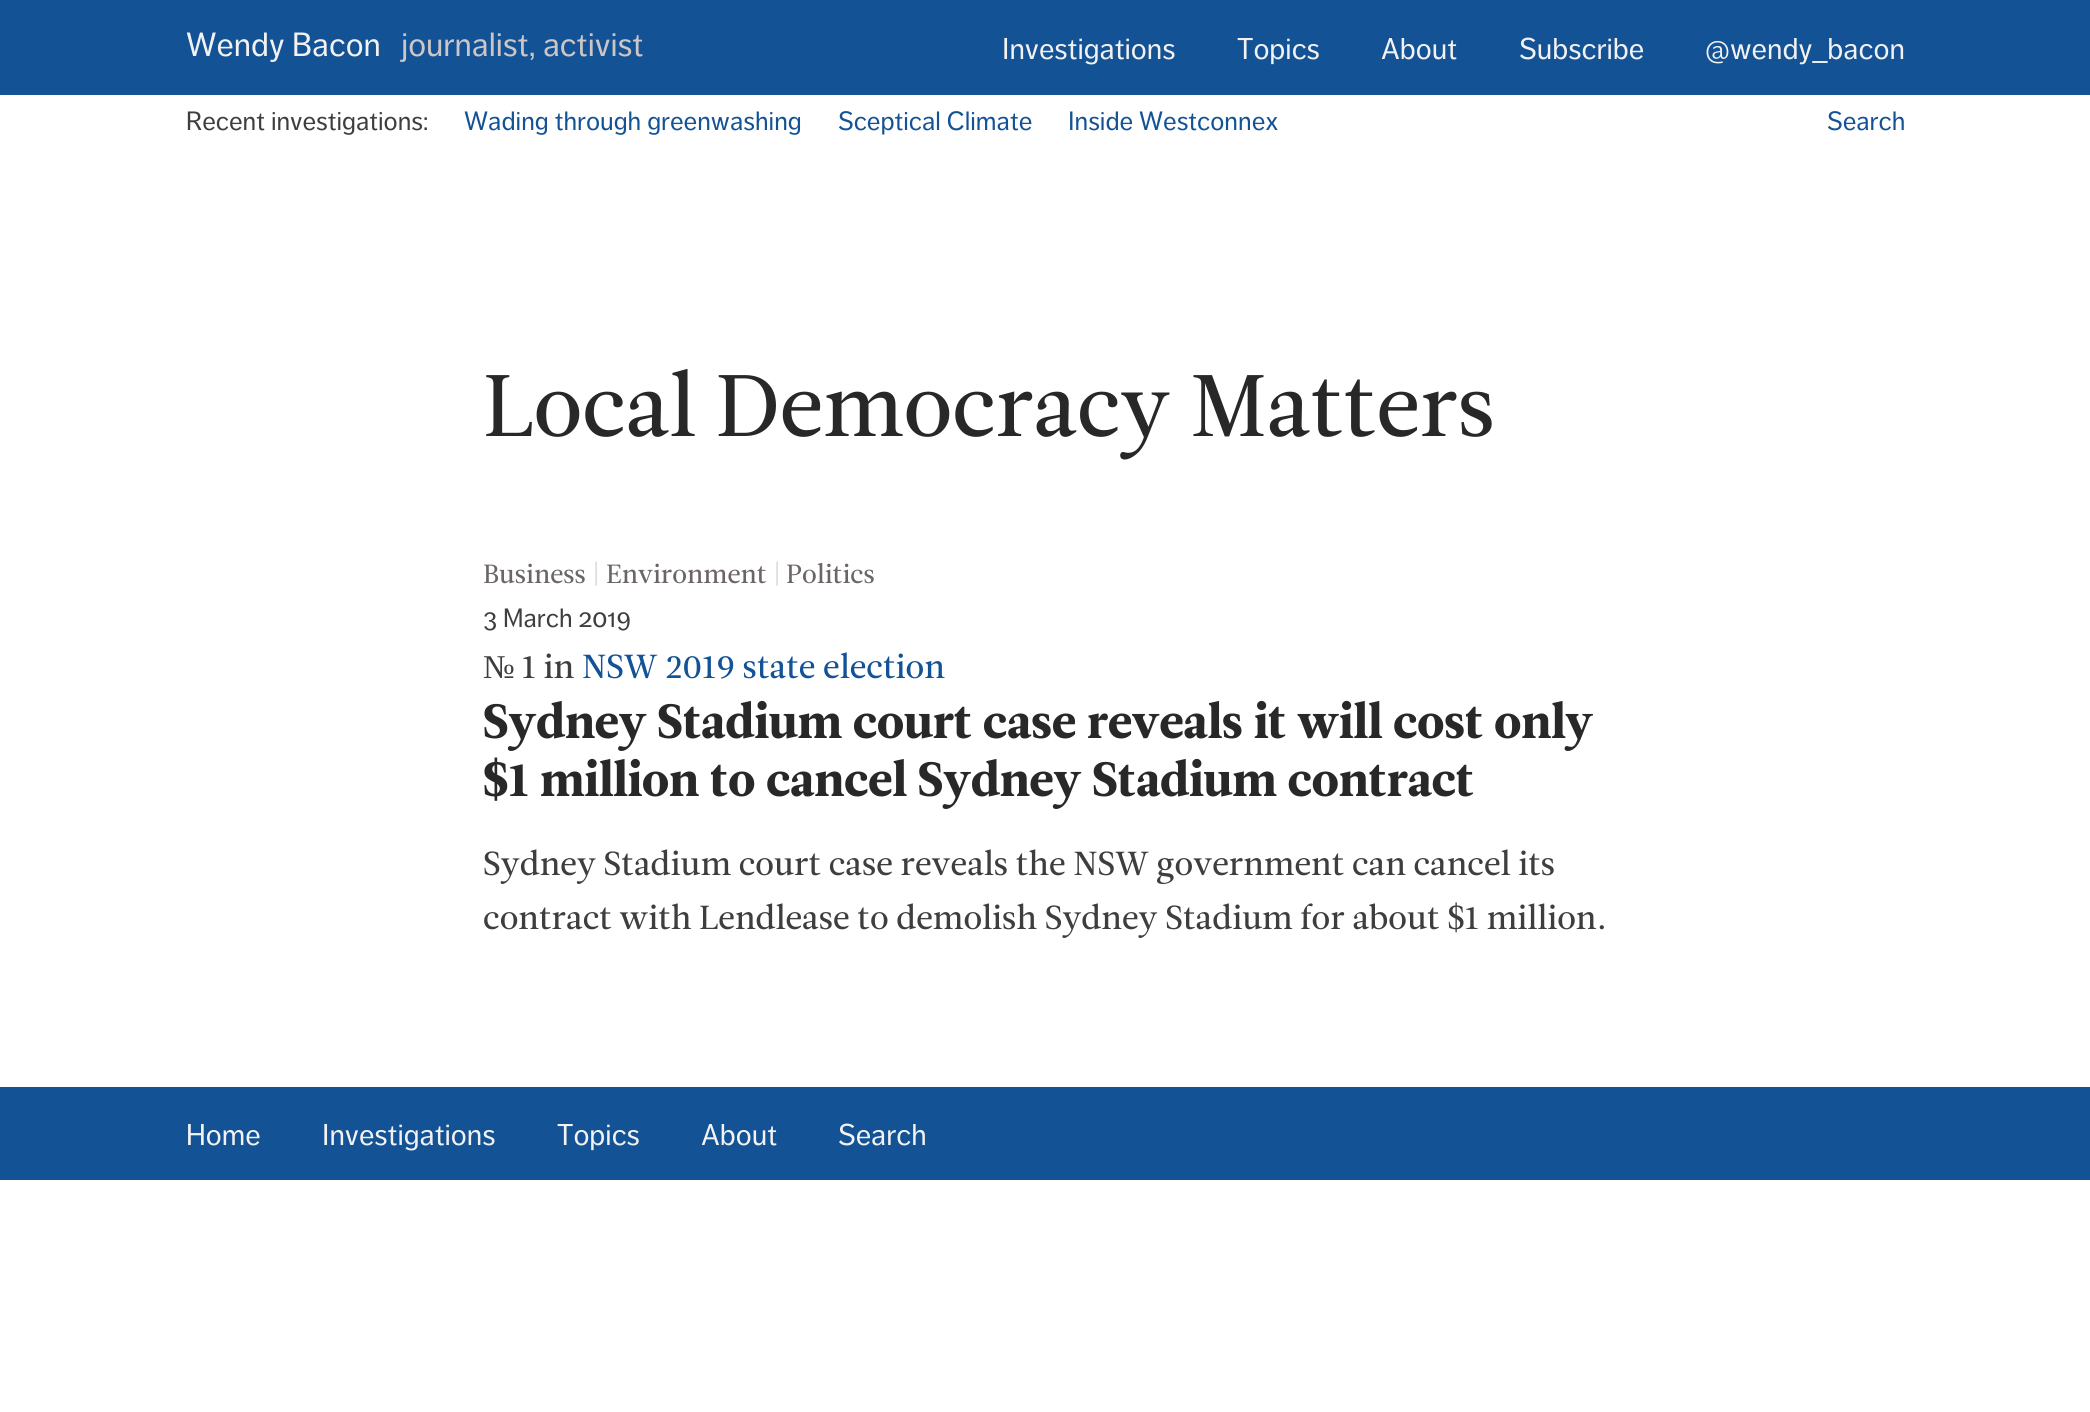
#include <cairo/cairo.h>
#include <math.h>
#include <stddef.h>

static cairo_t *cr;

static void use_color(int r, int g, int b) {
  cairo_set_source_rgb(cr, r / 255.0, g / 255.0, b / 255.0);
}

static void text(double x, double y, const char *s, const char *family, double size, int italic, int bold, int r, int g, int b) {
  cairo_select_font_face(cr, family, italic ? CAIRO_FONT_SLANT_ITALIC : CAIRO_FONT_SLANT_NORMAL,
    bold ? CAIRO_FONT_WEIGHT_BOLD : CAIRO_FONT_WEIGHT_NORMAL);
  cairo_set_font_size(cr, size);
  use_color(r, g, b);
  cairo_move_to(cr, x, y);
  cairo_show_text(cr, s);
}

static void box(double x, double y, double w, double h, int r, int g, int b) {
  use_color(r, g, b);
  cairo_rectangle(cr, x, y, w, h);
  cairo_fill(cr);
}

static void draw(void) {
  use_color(255, 255, 255);
  cairo_paint(cr);
  box(0, 0, 2090, 95, 19, 82, 149);
  box(0, 1087, 2090, 93, 19, 82, 149);
  text(186, 56, "Wendy Bacon", "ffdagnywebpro", 33.25, 0, 0, 243, 242, 242);
  text(401, 56, "journalist, activist", "ffdagnywebpro", 33.25, 0, 0, 205, 198, 198);
  text(1002, 59, "Investigations", "ffdagnywebpro", 29.75, 0, 0, 243, 242, 242);
  text(1237, 59, "Topics", "ffdagnywebpro", 29.75, 0, 0, 243, 242, 242);
  text(1381, 59, "About", "ffdagnywebpro", 29.75, 0, 0, 243, 242, 242);
  text(1519, 59, "Subscribe", "ffdagnywebpro", 29.75, 0, 0, 243, 242, 242);
  text(1705, 59, "@wendy_bacon", "ffdagnywebpro", 29.75, 0, 0, 243, 242, 242);
  text(186, 130, "Recent investigations:", "ffdagnywebpro", 26.25, 0, 0, 62, 62, 62);
  text(464, 130, "Wading through greenwashing", "ffdagnywebpro", 26.25, 0, 0, 19, 82, 149);
  text(838, 130, "Sceptical Climate", "ffdagnywebpro", 26.25, 0, 0, 19, 82, 149);
  text(1068, 130, "Inside Westconnex", "ffdagnywebpro", 26.25, 0, 0, 19, 82, 149);
  text(1827, 130, "Search", "ffdagnywebpro", 26.25, 0, 0, 19, 82, 149);
  text(483, 436, "Local Democracy Matters", "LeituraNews", 87, 0, 0, 40, 40, 40);
  text(483, 583, "Business", "LeituraNews", 26.25, 0, 0, 108, 101, 101);
  text(593, 583, "|", "LeituraNews", 26.25, 0, 0, 205, 198, 198);
  text(606, 583, "Environment", "LeituraNews", 26.25, 0, 0, 108, 101, 101);
  text(774, 583, "|", "LeituraNews", 26.25, 0, 0, 205, 198, 198);
  text(786, 583, "Politics", "LeituraNews", 26.25, 0, 0, 108, 101, 101);
  text(483, 627, "3 March 2019", "ffdagnywebpro", 26.25, 0, 0, 62, 62, 62);
  text(483, 678, "№", "Liberation Serif", 33.25, 0, 0, 62, 62, 62);
  text(522, 678, "1 in", "LeituraNews", 33.25, 0, 0, 62, 62, 62);
  text(582, 678, "NSW 2019 state election", "LeituraNews", 33.25, 0, 0, 19, 82, 149);
  text(483, 738, "Sydney Stadium court case reveals it will cost only", "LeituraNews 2", 48.1, 0, 0, 40, 40, 40);
  text(483, 796, "$1 million to cancel Sydney Stadium contract", "LeituraNews 2", 48.1, 0, 0, 40, 40, 40);
  text(483, 875, "Sydney Stadium court case reveals the NSW government can cancel its", "LeituraNews", 33.25, 0, 0, 62, 62, 62);
  text(483, 929, "contract with Lendlease to demolish Sydney Stadium for about $1 million.", "LeituraNews", 33.25, 0, 0, 62, 62, 62);
  text(186, 1145, "Home", "ffdagnywebpro", 29.75, 0, 0, 243, 242, 242);
  text(322, 1145, "Investigations", "ffdagnywebpro", 29.75, 0, 0, 243, 242, 242);
  text(557, 1145, "Topics", "ffdagnywebpro", 29.75, 0, 0, 243, 242, 242);
  text(701, 1145, "About", "ffdagnywebpro", 29.75, 0, 0, 243, 242, 242);
  text(838, 1145, "Search", "ffdagnywebpro", 29.75, 0, 0, 243, 242, 242);
}

int main(void) {
  cairo_surface_t *surface = cairo_image_surface_create(CAIRO_FORMAT_RGB24, 2090, 1412);
  cr = cairo_create(surface);
  cairo_font_options_t *options = cairo_font_options_create();
  cairo_font_options_set_hint_metrics(options, CAIRO_HINT_METRICS_OFF);
  cairo_font_options_set_hint_style(options, CAIRO_HINT_STYLE_NONE);
  cairo_set_font_options(cr, options);
  cairo_set_miter_limit(cr, 4);
  draw();
  cairo_surface_write_to_png(surface, "out.png");
  cairo_font_options_destroy(options);
  cairo_destroy(cr);
  cairo_surface_destroy(surface);
  return 0;
}
